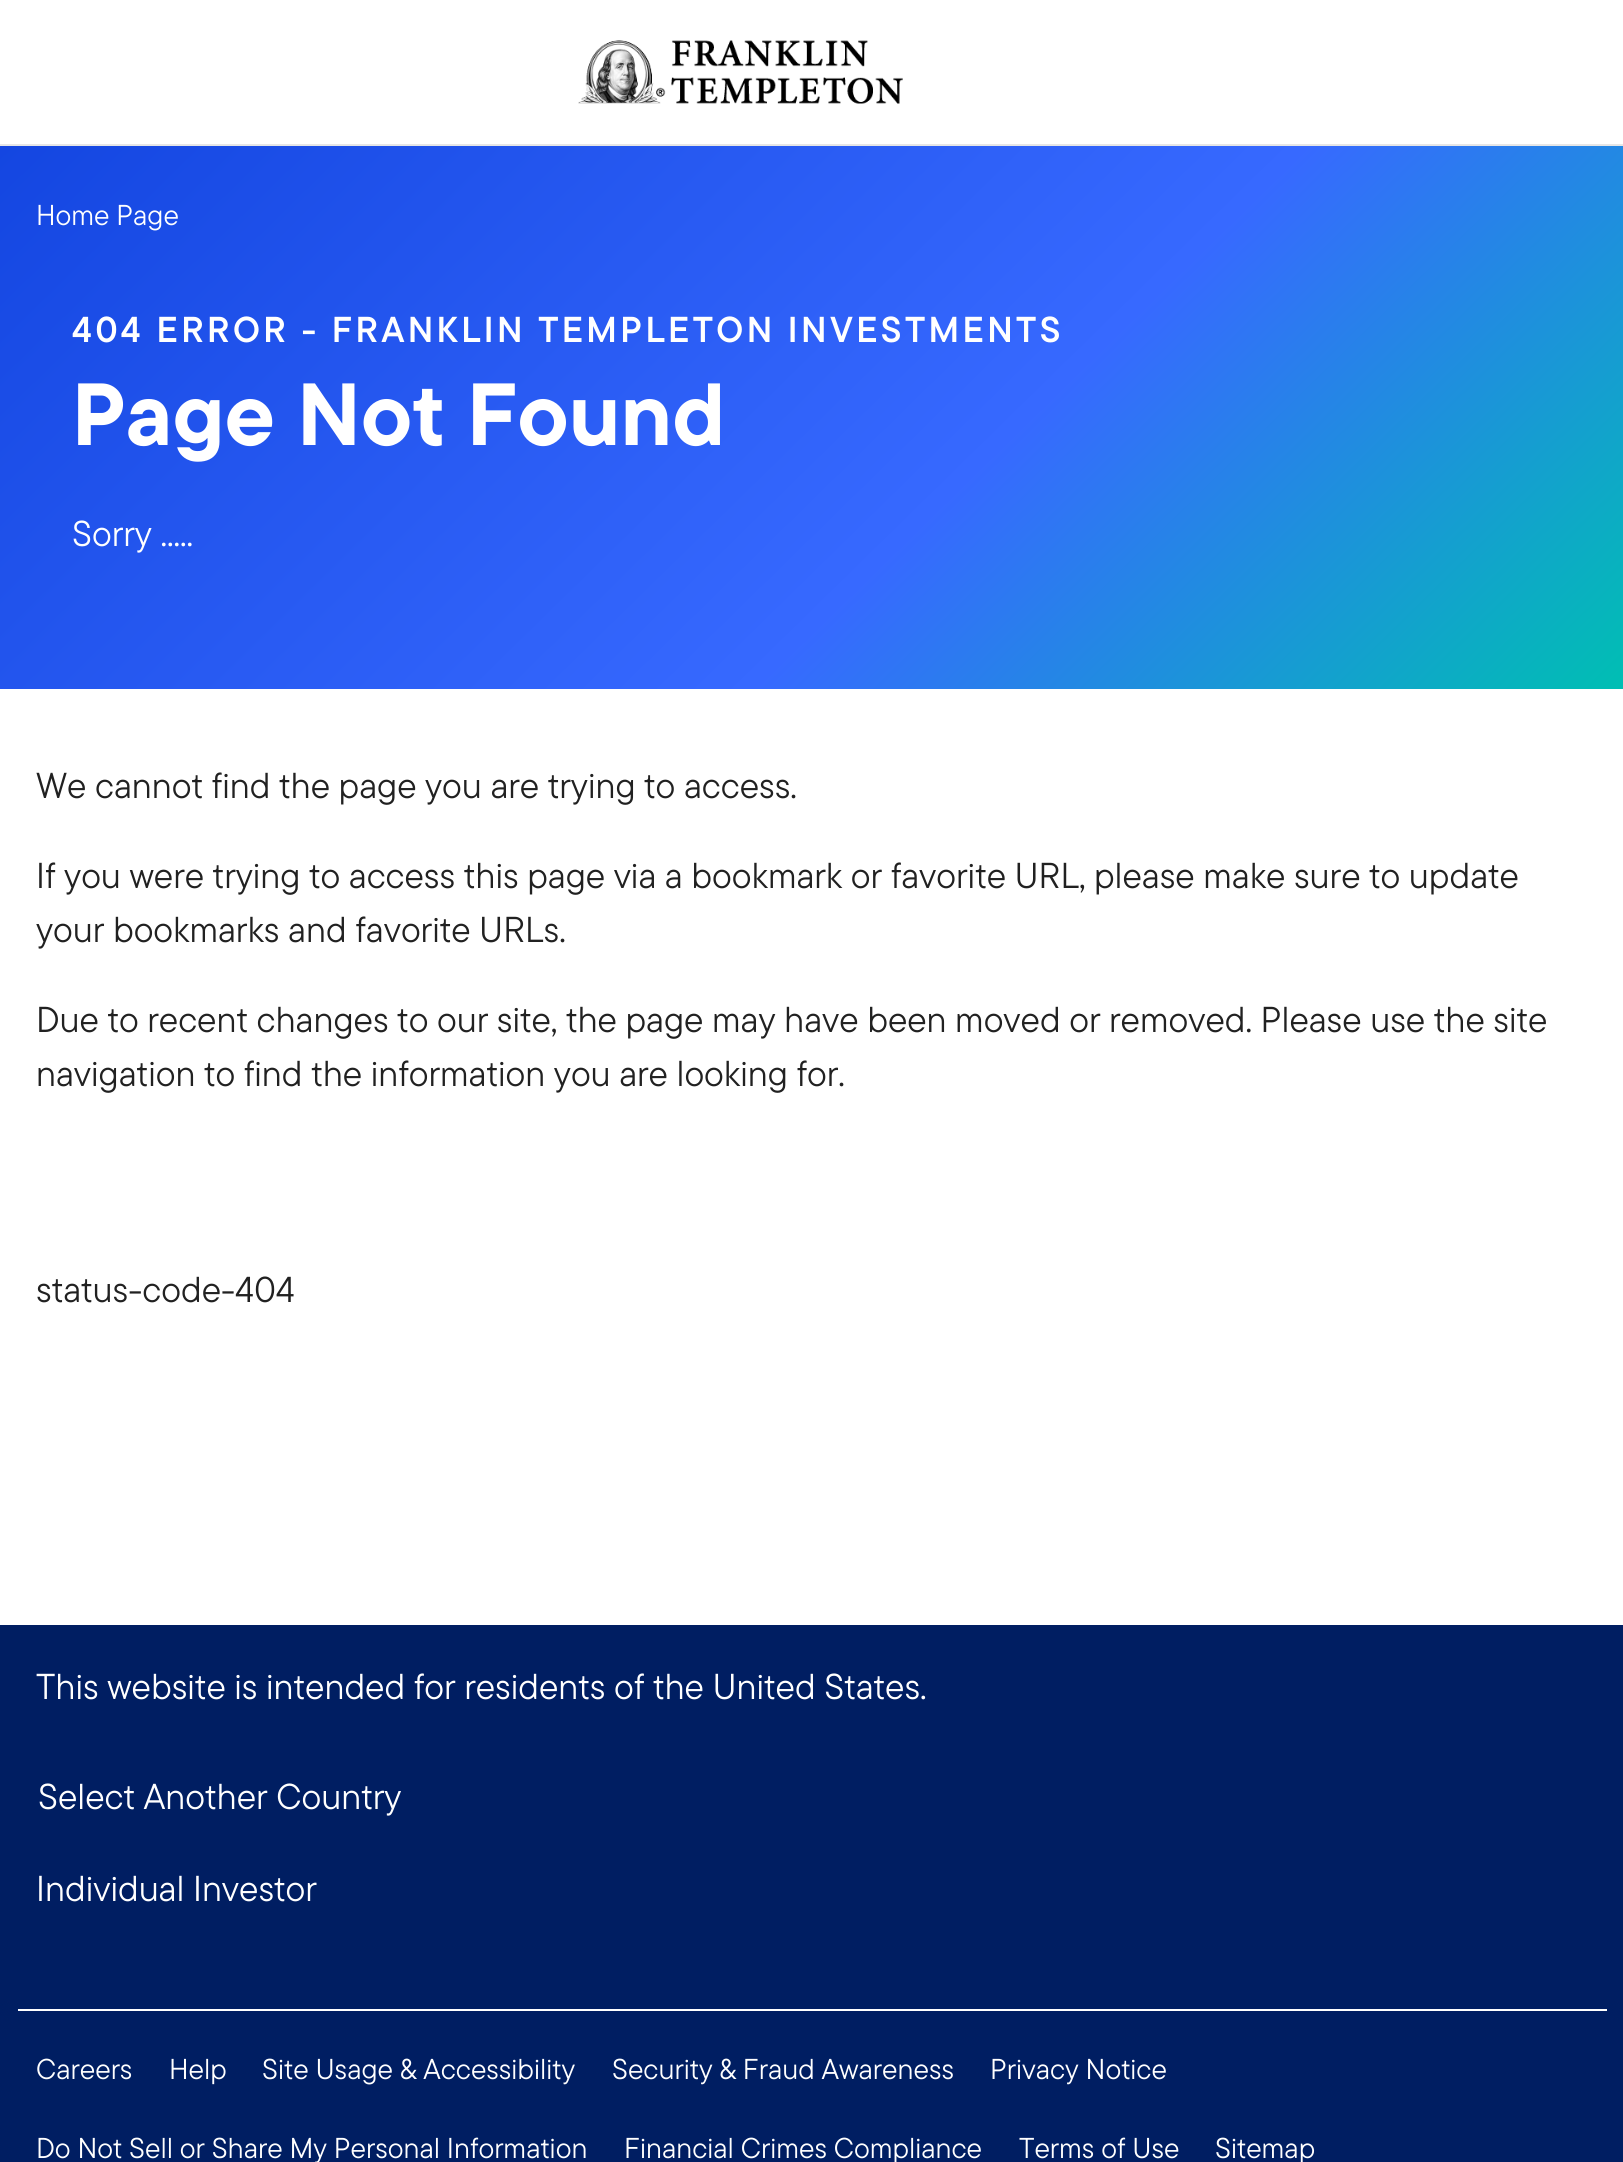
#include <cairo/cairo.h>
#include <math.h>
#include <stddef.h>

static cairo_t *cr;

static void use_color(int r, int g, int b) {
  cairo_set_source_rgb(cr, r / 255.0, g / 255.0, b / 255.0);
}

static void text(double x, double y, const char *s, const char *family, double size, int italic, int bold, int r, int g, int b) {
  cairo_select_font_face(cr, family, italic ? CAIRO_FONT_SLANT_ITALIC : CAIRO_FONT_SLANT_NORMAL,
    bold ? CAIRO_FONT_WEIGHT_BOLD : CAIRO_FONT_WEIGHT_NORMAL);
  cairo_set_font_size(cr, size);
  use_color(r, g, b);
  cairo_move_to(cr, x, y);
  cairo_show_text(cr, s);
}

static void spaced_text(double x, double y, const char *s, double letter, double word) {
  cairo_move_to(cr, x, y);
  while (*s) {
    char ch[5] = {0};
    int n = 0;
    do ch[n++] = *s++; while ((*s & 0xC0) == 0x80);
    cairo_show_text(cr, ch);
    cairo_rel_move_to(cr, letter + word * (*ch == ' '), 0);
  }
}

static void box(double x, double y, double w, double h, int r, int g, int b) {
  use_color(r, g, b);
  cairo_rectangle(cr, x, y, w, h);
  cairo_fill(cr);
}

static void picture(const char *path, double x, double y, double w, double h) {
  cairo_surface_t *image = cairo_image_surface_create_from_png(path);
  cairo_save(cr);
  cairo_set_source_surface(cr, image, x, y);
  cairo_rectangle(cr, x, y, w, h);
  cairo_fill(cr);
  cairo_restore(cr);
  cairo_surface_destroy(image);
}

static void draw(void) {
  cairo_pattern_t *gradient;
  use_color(255, 255, 255);
  cairo_paint(cr);
  box(0, 144, 1623, 2, 230, 230, 230);
  picture("img_01.png", 578, 40, 325, 64);
  gradient = cairo_pattern_create_linear(279, -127, 1345, 962);
  cairo_pattern_add_color_stop_rgba(gradient, 0, 0.078, 0.275, 0.882, 1);
  cairo_pattern_add_color_stop_rgba(gradient, 0.6, 0.216, 0.412, 1, 1);
  cairo_pattern_add_color_stop_rgba(gradient, 1, 0, 0.749, 0.702, 1);
  cairo_set_source(cr, gradient);
  cairo_pattern_destroy(gradient);
  cairo_rectangle(cr, 0, 146, 1623, 543);
  cairo_fill(cr);
  box(0, 1625, 1623, 537, 0, 30, 98);
  box(18, 2009, 1589, 2, 255, 255, 255);
  text(36, 225, "Home Page", "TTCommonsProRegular", 28.75, 0, 0, 255, 255, 255);
  cairo_select_font_face(cr, "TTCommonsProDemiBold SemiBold", CAIRO_FONT_SLANT_NORMAL, CAIRO_FONT_WEIGHT_NORMAL);
  cairo_set_font_size(cr, 36);
  spaced_text(72, 342, "404 ERROR - FRANKLIN TEMPLETON INVESTMENTS", 3.4, 0);
  text(72, 445, "Page Not Found", "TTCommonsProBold", 88, 0, 1, 255, 255, 255);
  text(72, 546, "Sorry .....", "TTCommonsProRegular", 36, 0, 0, 255, 255, 255);
  text(36, 798, "We cannot find the page you are trying to access.", "TTCommonsProRegular", 36, 0, 0, 33, 33, 33);
  text(36, 888, "If you were trying to access this page via a bookmark or favorite URL, please make sure to update", "TTCommonsProRegular", 36, 0, 0, 33, 33, 33);
  text(36, 942, "your bookmarks and favorite URLs.", "TTCommonsProRegular", 36, 0, 0, 33, 33, 33);
  text(36, 1032, "Due to recent changes to our site, the page may have been moved or removed. Please use the site", "TTCommonsProRegular", 36, 0, 0, 33, 33, 33);
  text(36, 1086, "navigation to find the information you are looking for.", "TTCommonsProRegular", 36, 0, 0, 33, 33, 33);
  text(36, 1302, "status-code-404", "TTCommonsProRegular", 36, 0, 0, 33, 33, 33);
  text(36, 1699, "This website is intended for residents of the United States.", "TTCommonsProRegular", 36, 0, 0, 255, 255, 255);
  text(38, 1809, "Select Another Country", "TTCommonsProRegular", 36, 0, 0, 255, 255, 255);
  text(36, 1901, "Individual Investor", "TTCommonsProRegular", 36, 0, 0, 255, 255, 255);
  text(36, 2079, "Careers", "TTCommonsProRegular", 28.75, 0, 0, 255, 255, 255);
  text(169, 2079, "Help", "TTCommonsProRegular", 28.75, 0, 0, 255, 255, 255);
  text(262, 2079, "Site Usage & Accessibility", "TTCommonsProRegular", 28.75, 0, 0, 255, 255, 255);
  text(612, 2079, "Security & Fraud Awareness", "TTCommonsProRegular", 28.75, 0, 0, 255, 255, 255);
  text(990, 2079, "Privacy Notice", "TTCommonsProRegular", 28.75, 0, 0, 255, 255, 255);
  text(36, 2158, "Do Not Sell or Share My Personal Information", "TTCommonsProRegular", 28.75, 0, 0, 255, 255, 255);
  text(624, 2158, "Financial Crimes Compliance", "TTCommonsProRegular", 28.75, 0, 0, 255, 255, 255);
  text(1019, 2158, "Terms of Use", "TTCommonsProRegular", 28.75, 0, 0, 255, 255, 255);
  text(1215, 2158, "Sitemap", "TTCommonsProRegular", 28.75, 0, 0, 255, 255, 255);
}

int main(void) {
  cairo_surface_t *surface = cairo_image_surface_create(CAIRO_FORMAT_RGB24, 1623, 2162);
  cr = cairo_create(surface);
  cairo_font_options_t *options = cairo_font_options_create();
  cairo_font_options_set_hint_metrics(options, CAIRO_HINT_METRICS_OFF);
  cairo_font_options_set_hint_style(options, CAIRO_HINT_STYLE_NONE);
  cairo_set_font_options(cr, options);
  cairo_set_miter_limit(cr, 4);
  draw();
  cairo_surface_write_to_png(surface, "out.png");
  cairo_font_options_destroy(options);
  cairo_destroy(cr);
  cairo_surface_destroy(surface);
  return 0;
}
